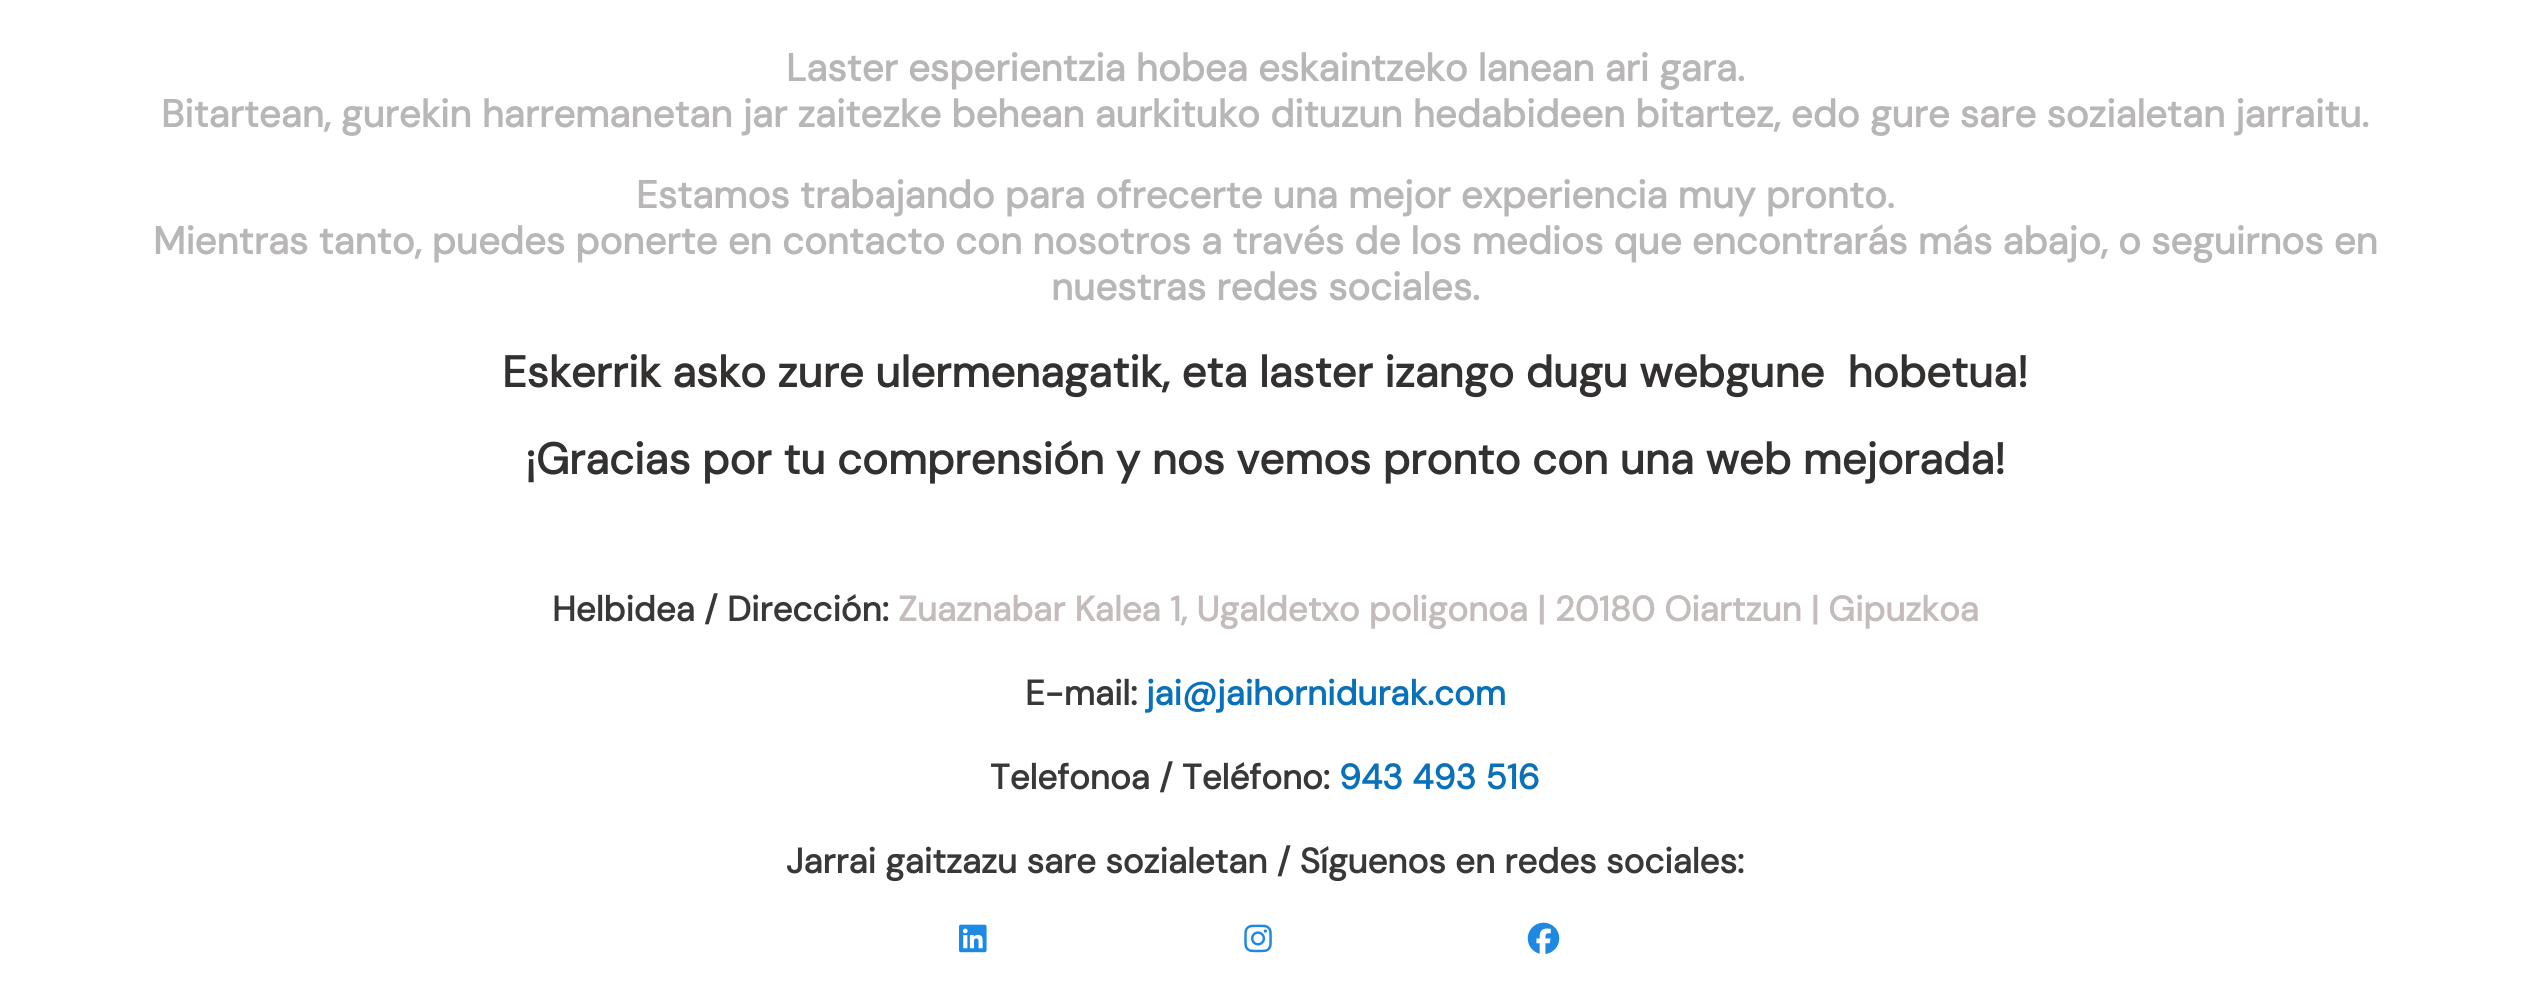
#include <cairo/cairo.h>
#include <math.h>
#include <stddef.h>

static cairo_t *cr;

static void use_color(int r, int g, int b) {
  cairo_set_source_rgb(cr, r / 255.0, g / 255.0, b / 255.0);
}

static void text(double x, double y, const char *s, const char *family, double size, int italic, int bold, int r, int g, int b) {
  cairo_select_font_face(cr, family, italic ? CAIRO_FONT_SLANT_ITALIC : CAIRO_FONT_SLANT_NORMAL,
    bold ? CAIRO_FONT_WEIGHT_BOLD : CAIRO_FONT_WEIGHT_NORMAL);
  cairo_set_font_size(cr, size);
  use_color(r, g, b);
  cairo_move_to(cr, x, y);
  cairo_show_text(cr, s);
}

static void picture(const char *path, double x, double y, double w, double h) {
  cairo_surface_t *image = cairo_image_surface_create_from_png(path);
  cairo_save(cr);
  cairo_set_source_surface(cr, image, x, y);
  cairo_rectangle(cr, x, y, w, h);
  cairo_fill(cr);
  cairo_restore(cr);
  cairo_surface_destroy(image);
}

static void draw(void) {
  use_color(255, 255, 255);
  cairo_paint(cr);
  picture("img_01.png", 959, 924, 28, 29);
  picture("img_02.png", 1244, 924, 28, 29);
  picture("img_03.png", 1527, 922, 33, 32);
  text(786, 81, "Laster esperientzia hobea eskaintzeko lanean ari gara.", "DM Sans", 38.5, 0, 1, 184, 182, 182);
  text(161, 127, "Bitartean, gurekin harremanetan jar zaitezke behean aurkituko dituzun hedabideen bitartez, edo gure sare sozialetan jarraitu.", "DM Sans", 38.5, 0, 1, 184, 182, 182);
  text(636, 208, "Estamos trabajando para ofrecerte una mejor experiencia muy pronto.", "DM Sans", 38.5, 0, 1, 184, 182, 182);
  text(153, 254, "Mientras tanto, puedes ponerte en contacto con nosotros a través de los medios que encontrarás más abajo, o seguirnos en", "DM Sans", 38.5, 0, 1, 184, 182, 182);
  text(1051, 300, "nuestras redes sociales.", "DM Sans", 38.5, 0, 1, 184, 182, 182);
  text(502, 387, "Eskerrik asko zure ulermenagatik, eta laster izango dugu webgune  hobetua!", "DM Sans", 43.75, 0, 1, 51, 48, 48);
  text(525, 474, "¡Gracias por tu comprensión y nos vemos pronto con una web mejorada!", "DM Sans", 43.75, 0, 1, 51, 48, 48);
  text(552, 621, "Helbidea / Dirección:", "DM Sans", 35, 0, 1, 56, 56, 56);
  text(898, 621, "Zuaznabar Kalea 1, Ugaldetxo poligonoa | 20180 Oiartzun | Gipuzkoa", "DM Sans", 35, 0, 1, 196, 187, 187);
  text(1025, 705, "E-mail:", "DM Sans", 35, 0, 1, 56, 56, 56);
  text(1146, 705, "jai@jaihornidurak.com", "DM Sans", 35, 0, 1, 9, 112, 186);
  text(990, 789, "Telefonoa / Teléfono:", "DM Sans", 35, 0, 1, 56, 56, 56);
  text(1339, 789, "943 493 516", "DM Sans", 35, 0, 1, 9, 112, 186);
  text(786, 873, "Jarrai gaitzazu sare sozialetan / Síguenos en redes sociales:", "DM Sans", 35, 0, 1, 56, 56, 56);
}

int main(void) {
  cairo_surface_t *surface = cairo_image_surface_create(CAIRO_FORMAT_RGB24, 2529, 991);
  cr = cairo_create(surface);
  cairo_font_options_t *options = cairo_font_options_create();
  cairo_font_options_set_hint_metrics(options, CAIRO_HINT_METRICS_OFF);
  cairo_font_options_set_hint_style(options, CAIRO_HINT_STYLE_NONE);
  cairo_set_font_options(cr, options);
  cairo_set_miter_limit(cr, 4);
  draw();
  cairo_surface_write_to_png(surface, "out.png");
  cairo_font_options_destroy(options);
  cairo_destroy(cr);
  cairo_surface_destroy(surface);
  return 0;
}
